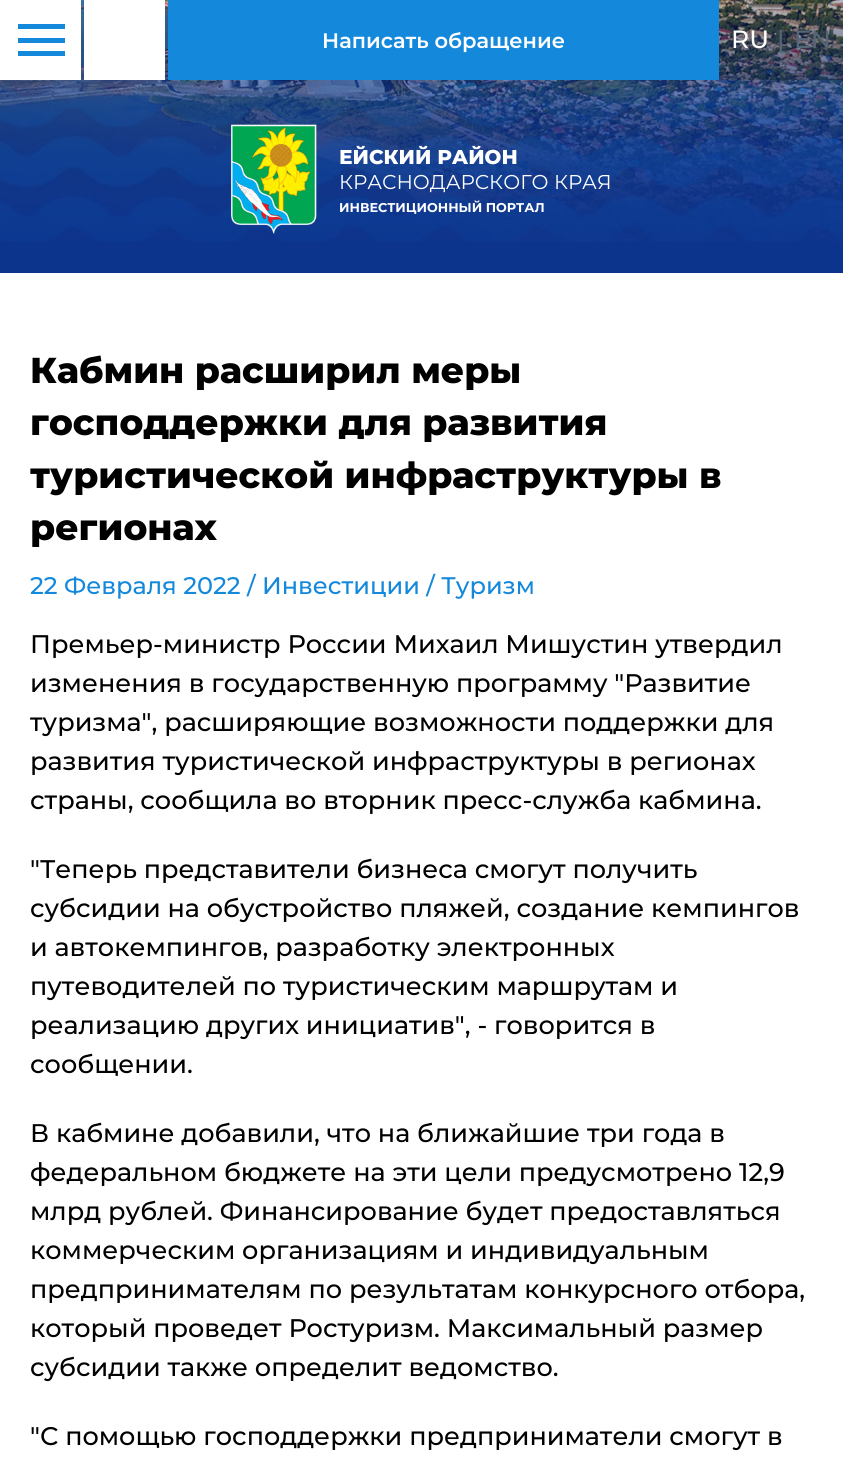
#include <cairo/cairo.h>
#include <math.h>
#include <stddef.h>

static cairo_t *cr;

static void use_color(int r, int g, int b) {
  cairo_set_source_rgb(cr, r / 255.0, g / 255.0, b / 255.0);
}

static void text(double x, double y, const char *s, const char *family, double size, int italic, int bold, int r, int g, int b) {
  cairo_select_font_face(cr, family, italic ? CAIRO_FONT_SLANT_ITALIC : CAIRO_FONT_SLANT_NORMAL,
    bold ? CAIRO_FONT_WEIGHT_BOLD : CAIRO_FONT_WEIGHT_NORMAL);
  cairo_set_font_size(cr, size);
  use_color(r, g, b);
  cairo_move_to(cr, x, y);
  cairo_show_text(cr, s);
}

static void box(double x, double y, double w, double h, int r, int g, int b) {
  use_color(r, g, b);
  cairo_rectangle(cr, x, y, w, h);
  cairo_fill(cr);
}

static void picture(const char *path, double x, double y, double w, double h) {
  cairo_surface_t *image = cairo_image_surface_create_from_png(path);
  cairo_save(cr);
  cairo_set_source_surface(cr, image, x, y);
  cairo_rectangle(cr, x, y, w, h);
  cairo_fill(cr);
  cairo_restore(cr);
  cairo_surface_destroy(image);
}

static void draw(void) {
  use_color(255, 255, 255);
  cairo_paint(cr);
  box(0, 242, 843, 31, 13, 52, 140);
  picture("img_01.png", 0, 0, 843, 242);
  box(0, 0, 81, 80, 255, 255, 255);
  box(18, 38, 47, 5, 20, 136, 219);
  box(18, 24, 47, 5, 20, 136, 219);
  box(18, 51, 47, 5, 20, 136, 219);
  box(84, 0, 81, 80, 255, 255, 255);
  box(168, 0, 551, 80, 20, 136, 219);
  cairo_set_source_rgba(cr, 0, 0, 0, 0.2);
  cairo_rectangle(cr, 719, 0, 124, 80);
  cairo_fill(cr);
  picture("img_02.png", 231, 124, 86, 110);
  text(322, 48, "Написать обращение", "Montserrat SemiBold", 21, 0, 0, 255, 255, 255);
  text(731, 48, "RU", "Montserrat Medium", 25, 0, 0, 255, 255, 255);
  text(777, 48, "|", "Montserrat Medium", 25, 0, 0, 85, 102, 119);
  text(794, 48, "EN", "Montserrat Medium", 25, 0, 0, 85, 102, 119);
  text(339, 164, "ЕЙСКИЙ РАЙОН", "Montserrat ExtraBold", 20, 0, 0, 255, 255, 255);
  text(339, 189, "КРАСНОДАРСКОГО КРАЯ", "Montserrat", 20, 0, 0, 255, 255, 255);
  text(339, 212, "ИНВЕСТИЦИОННЫЙ ПОРТАЛ", "Montserrat", 12.75, 0, 1, 255, 255, 255);
  text(30, 383, "Кабмин расширил меры", "Montserrat ExtraBold", 36, 0, 0, 0, 0, 0);
  text(30, 435, "господдержки для развития", "Montserrat ExtraBold", 36, 0, 0, 0, 0, 0);
  text(30, 488, "туристической инфраструктуры в", "Montserrat ExtraBold", 36, 0, 0, 0, 0, 0);
  text(30, 540, "регионах", "Montserrat ExtraBold", 36, 0, 0, 0, 0, 0);
  text(30, 594, "22 Февраля 2022 / Инвестиции / Туризм", "Montserrat Medium", 24, 0, 0, 20, 136, 219);
  text(30, 653, "Премьер-министр России Михаил Мишустин утвердил", "Montserrat Medium", 25.5, 0, 0, 0, 0, 0);
  text(30, 692, "изменения в государственную программу \"Развитие", "Montserrat Medium", 25.5, 0, 0, 0, 0, 0);
  text(30, 731, "туризма\", расширяющие возможности поддержки для", "Montserrat Medium", 25.5, 0, 0, 0, 0, 0);
  text(30, 770, "развития туристической инфраструктуры в регионах", "Montserrat Medium", 25.5, 0, 0, 0, 0, 0);
  text(30, 809, "страны, сообщила во вторник пресс-служба кабмина.", "Montserrat Medium", 25.5, 0, 0, 0, 0, 0);
  text(30, 878, "\"Теперь представители бизнеса смогут получить", "Montserrat Medium", 25.5, 0, 0, 0, 0, 0);
  text(30, 917, "субсидии на обустройство пляжей, создание кемпингов", "Montserrat Medium", 25.5, 0, 0, 0, 0, 0);
  text(30, 956, "и автокемпингов, разработку электронных", "Montserrat Medium", 25.5, 0, 0, 0, 0, 0);
  text(30, 995, "путеводителей по туристическим маршрутам и", "Montserrat Medium", 25.5, 0, 0, 0, 0, 0);
  text(30, 1034, "реализацию других инициатив\", - говорится в", "Montserrat Medium", 25.5, 0, 0, 0, 0, 0);
  text(30, 1073, "сообщении.", "Montserrat Medium", 25.5, 0, 0, 0, 0, 0);
  text(30, 1142, "В кабмине добавили, что на ближайшие три года в", "Montserrat Medium", 25.5, 0, 0, 0, 0, 0);
  text(30, 1181, "федеральном бюджете на эти цели предусмотрено 12,9", "Montserrat Medium", 25.5, 0, 0, 0, 0, 0);
  text(30, 1220, "млрд рублей. Финансирование будет предоставляться", "Montserrat Medium", 25.5, 0, 0, 0, 0, 0);
  text(30, 1259, "коммерческим организациям и индивидуальным", "Montserrat Medium", 25.5, 0, 0, 0, 0, 0);
  text(30, 1298, "предпринимателям по результатам конкурсного отбора,", "Montserrat Medium", 25.5, 0, 0, 0, 0, 0);
  text(30, 1337, "который проведет Ростуризм. Максимальный размер", "Montserrat Medium", 25.5, 0, 0, 0, 0, 0);
  text(30, 1376, "субсидии также определит ведомство.", "Montserrat Medium", 25.5, 0, 0, 0, 0, 0);
  text(30, 1445, "\"С помощью господдержки предприниматели смогут в", "Montserrat Medium", 25.5, 0, 0, 0, 0, 0);
}

int main(void) {
  cairo_surface_t *surface = cairo_image_surface_create(CAIRO_FORMAT_RGB24, 843, 1474);
  cr = cairo_create(surface);
  cairo_font_options_t *options = cairo_font_options_create();
  cairo_font_options_set_hint_metrics(options, CAIRO_HINT_METRICS_OFF);
  cairo_font_options_set_hint_style(options, CAIRO_HINT_STYLE_NONE);
  cairo_set_font_options(cr, options);
  cairo_set_miter_limit(cr, 4);
  draw();
  cairo_surface_write_to_png(surface, "out.png");
  cairo_font_options_destroy(options);
  cairo_destroy(cr);
  cairo_surface_destroy(surface);
  return 0;
}
